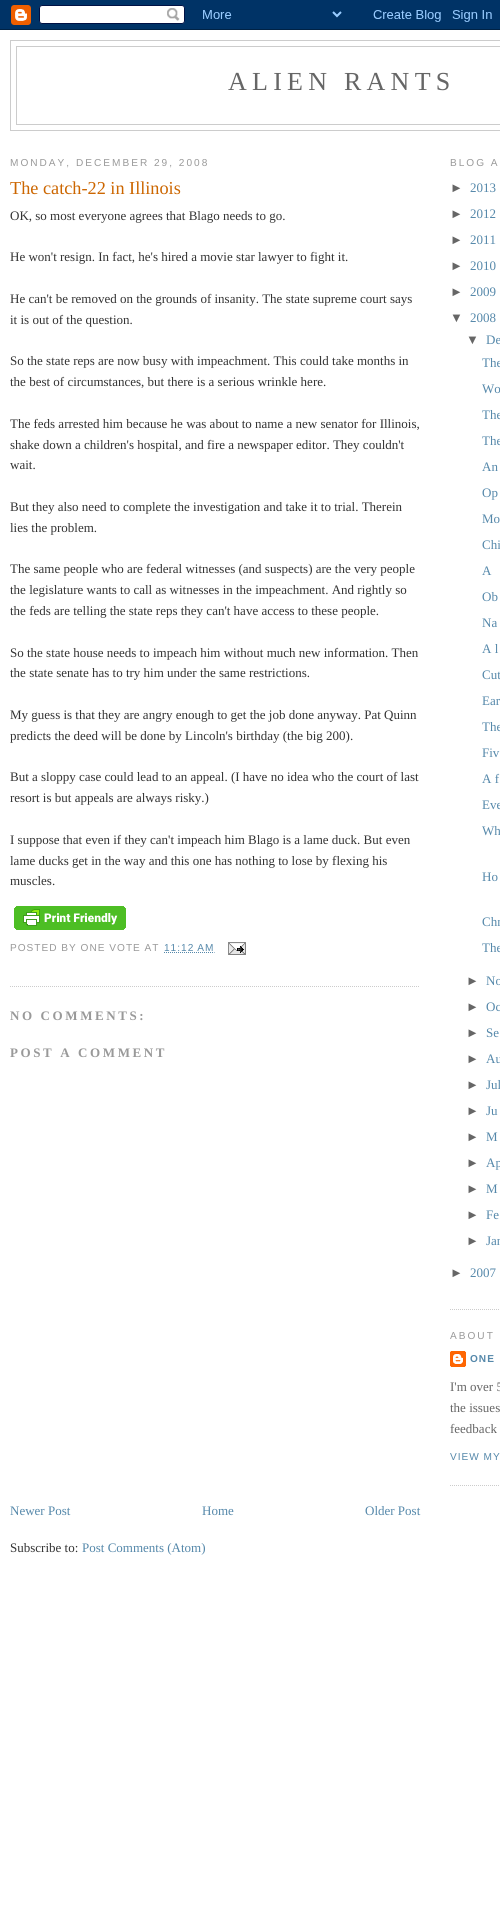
#include <cairo/cairo.h>
#include <math.h>
#include <stddef.h>

static cairo_t *cr;

static void use_color(int r, int g, int b) {
  cairo_set_source_rgb(cr, r / 255.0, g / 255.0, b / 255.0);
}

static void text(double x, double y, const char *s, const char *family, double size, int italic, int bold, int r, int g, int b) {
  cairo_select_font_face(cr, family, italic ? CAIRO_FONT_SLANT_ITALIC : CAIRO_FONT_SLANT_NORMAL,
    bold ? CAIRO_FONT_WEIGHT_BOLD : CAIRO_FONT_WEIGHT_NORMAL);
  cairo_set_font_size(cr, size);
  use_color(r, g, b);
  cairo_move_to(cr, x, y);
  cairo_show_text(cr, s);
}

static void spaced_text(double x, double y, const char *s, double letter, double word) {
  cairo_move_to(cr, x, y);
  while (*s) {
    char ch[5] = {0};
    int n = 0;
    do ch[n++] = *s++; while ((*s & 0xC0) == 0x80);
    cairo_show_text(cr, ch);
    cairo_rel_move_to(cr, letter + word * (*ch == ' '), 0);
  }
}

static void picture(const char *path, double x, double y, double w, double h) {
  cairo_surface_t *image = cairo_image_surface_create_from_png(path);
  cairo_save(cr);
  cairo_set_source_surface(cr, image, x, y);
  cairo_rectangle(cr, x, y, w, h);
  cairo_fill(cr);
  cairo_restore(cr);
  cairo_surface_destroy(image);
}

static void draw(void) {
  use_color(255, 255, 255);
  cairo_paint(cr);
  picture("img_01.png", 0, 0, 500, 30);
  cairo_rectangle(cr, 10.5, 40.5, 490, 90);
  use_color(204, 204, 204);
  cairo_set_line_width(cr, 1);
  cairo_stroke(cr);
  cairo_rectangle(cr, 16.5, 46.5, 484, 78);
  cairo_stroke(cr);
  cairo_new_path(cr);
  cairo_move_to(cr, 10, 986.5);
  cairo_line_to(cr, 420, 986.5);
  cairo_set_dash(cr, (double[]){1, 1}, 2, 0);
  cairo_stroke(cr);
  picture("img_02.png", 14, 906, 112, 24);
  cairo_new_path(cr);
  cairo_move_to(cr, 164, 952.5);
  cairo_line_to(cr, 214.5, 952.5);
  use_color(85, 136, 170);
  cairo_stroke(cr);
  picture("img_03.png", 228, 942, 18, 13);
  cairo_new_path(cr);
  cairo_move_to(cr, 450, 1309.5);
  cairo_line_to(cr, 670, 1309.5);
  use_color(204, 204, 204);
  cairo_stroke(cr);
  cairo_new_path(cr);
  cairo_move_to(cr, 450, 1485.5);
  cairo_line_to(cr, 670, 1485.5);
  cairo_stroke(cr);
  picture("img_04.png", 450, 1351, 16, 16);
  cairo_select_font_face(cr, "Liberation Serif", CAIRO_FONT_SLANT_NORMAL, CAIRO_FONT_WEIGHT_NORMAL);
  cairo_set_font_size(cr, 26);
  use_color(102, 102, 102);
  spaced_text(228, 90, "ALIEN RANTS", 5.25, 0);
  cairo_select_font_face(cr, "Liberation Sans", CAIRO_FONT_SLANT_NORMAL, CAIRO_FONT_WEIGHT_NORMAL);
  cairo_set_font_size(cr, 10.1);
  use_color(153, 153, 153);
  spaced_text(10, 166, "MONDAY, DECEMBER 29, 2008", 2, 0);
  text(10, 194, "The catch-22 in Illinois", "Liberation Serif", 18.25, 0, 0, 204, 102, 0);
  text(10, 220, "OK, so most everyone agrees that Blago needs to go.", "Liberation Serif", 13, 0, 0, 51, 51, 51);
  text(10, 261, "He won't resign. In fact, he's hired a movie star lawyer to fight it.", "Liberation Serif", 13, 0, 0, 51, 51, 51);
  text(10, 303, "He can't be removed on the grounds of insanity. The state supreme court says", "Liberation Serif", 13, 0, 0, 51, 51, 51);
  text(10, 324, "it is out of the question.", "Liberation Serif", 13, 0, 0, 51, 51, 51);
  text(10, 365, "So the state reps are now busy with impeachment. This could take months in", "Liberation Serif", 13, 0, 0, 51, 51, 51);
  text(10, 386, "the best of circumstances, but there is a serious wrinkle here.", "Liberation Serif", 13, 0, 0, 51, 51, 51);
  text(10, 428, "The feds arrested him because he was about to name a new senator for Illinois,", "Liberation Serif", 13, 0, 0, 51, 51, 51);
  text(10, 449, "shake down a children's hospital, and fire a newspaper editor. They couldn't", "Liberation Serif", 13, 0, 0, 51, 51, 51);
  text(10, 469, "wait.", "Liberation Serif", 13, 0, 0, 51, 51, 51);
  text(10, 511, "But they also need to complete the investigation and take it to trial. Therein", "Liberation Serif", 13, 0, 0, 51, 51, 51);
  text(10, 532, "lies the problem.", "Liberation Serif", 13, 0, 0, 51, 51, 51);
  text(10, 573, "The same people who are federal witnesses (and suspects) are the very people", "Liberation Serif", 13, 0, 0, 51, 51, 51);
  text(10, 594, "the legislature wants to call as witnesses in the impeachment. And rightly so", "Liberation Serif", 13, 0, 0, 51, 51, 51);
  text(10, 615, "the feds are telling the state reps they can't have access to these people.", "Liberation Serif", 13, 0, 0, 51, 51, 51);
  text(10, 657, "So the state house needs to impeach him without much new information. Then", "Liberation Serif", 13, 0, 0, 51, 51, 51);
  text(10, 677, "the state senate has to try him under the same restrictions.", "Liberation Serif", 13, 0, 0, 51, 51, 51);
  text(10, 719, "My guess is that they are angry enough to get the job done anyway. Pat Quinn", "Liberation Serif", 13, 0, 0, 51, 51, 51);
  text(10, 740, "predicts the deed will be done by Lincoln's birthday (the big 200).", "Liberation Serif", 13, 0, 0, 51, 51, 51);
  text(10, 781, "But a sloppy case could lead to an appeal. (I have no idea who the court of last", "Liberation Serif", 13, 0, 0, 51, 51, 51);
  text(10, 802, "resort is but appeals are always risky.)", "Liberation Serif", 13, 0, 0, 51, 51, 51);
  text(10, 844, "I suppose that even if they can't impeach him Blago is a lame duck. But even", "Liberation Serif", 13, 0, 0, 51, 51, 51);
  text(10, 865, "lame ducks get in the way and this one has nothing to lose by flexing his", "Liberation Serif", 13, 0, 0, 51, 51, 51);
  text(10, 885, "muscles.", "Liberation Serif", 13, 0, 0, 51, 51, 51);
  cairo_select_font_face(cr, "Liberation Sans", CAIRO_FONT_SLANT_NORMAL, CAIRO_FONT_WEIGHT_NORMAL);
  cairo_set_font_size(cr, 10.1);
  use_color(153, 153, 153);
  spaced_text(10, 951, "POSTED BY ONE VOTE AT", 1, 0);
  use_color(85, 136, 170);
  spaced_text(164, 951, "11:12 AM", 1, 0);
  cairo_select_font_face(cr, "Liberation Serif", CAIRO_FONT_SLANT_NORMAL, CAIRO_FONT_WEIGHT_BOLD);
  cairo_set_font_size(cr, 13);
  use_color(153, 153, 153);
  spaced_text(10, 1020, "NO COMMENTS:", 2.6, 0);
  spaced_text(10, 1057, "POST A COMMENT", 2.6, 0);
  text(10, 1515, "Newer Post", "Liberation Serif", 13, 0, 0, 85, 136, 170);
  text(202, 1515, "Home", "Liberation Serif", 13, 0, 0, 85, 136, 170);
  text(365, 1515, "Older Post", "Liberation Serif", 13, 0, 0, 85, 136, 170);
  text(10, 1552, "Subscribe to:", "Liberation Serif", 13, 0, 0, 51, 51, 51);
  text(82, 1552, "Post Comments (Atom)", "Liberation Serif", 13, 0, 0, 85, 136, 170);
  cairo_select_font_face(cr, "Liberation Sans", CAIRO_FONT_SLANT_NORMAL, CAIRO_FONT_WEIGHT_NORMAL);
  cairo_set_font_size(cr, 10.1);
  use_color(153, 153, 153);
  spaced_text(450, 166, "BLOG A", 2, 0);
  text(450, 192, "►", "Liberation Sans", 13, 0, 0, 102, 102, 102);
  text(470, 192, "2013", "Liberation Serif", 13, 0, 0, 85, 136, 170);
  text(450, 218, "►", "Liberation Sans", 13, 0, 0, 102, 102, 102);
  text(470, 218, "2012", "Liberation Serif", 13, 0, 0, 85, 136, 170);
  text(450, 244, "►", "Liberation Sans", 13, 0, 0, 102, 102, 102);
  text(470, 244, "2011", "Liberation Serif", 13, 0, 0, 85, 136, 170);
  text(450, 270, "►", "Liberation Sans", 13, 0, 0, 102, 102, 102);
  text(470, 270, "2010", "Liberation Serif", 13, 0, 0, 85, 136, 170);
  text(450, 296, "►", "Liberation Sans", 13, 0, 0, 102, 102, 102);
  text(470, 296, "2009", "Liberation Serif", 13, 0, 0, 85, 136, 170);
  text(450, 322, "▼", "Liberation Sans", 13, 0, 0, 102, 102, 102);
  text(470, 322, "2008", "Liberation Serif", 13, 0, 0, 85, 136, 170);
  text(466, 344, "▼", "Liberation Sans", 13, 0, 0, 102, 102, 102);
  text(486, 344, "De", "Liberation Serif", 13, 0, 0, 85, 136, 170);
  text(482, 367, "The", "Liberation Serif", 13, 0, 0, 85, 136, 170);
  text(482, 393, "Wo", "Liberation Serif", 13, 0, 0, 85, 136, 170);
  text(482, 419, "The", "Liberation Serif", 13, 0, 0, 85, 136, 170);
  text(482, 445, "The", "Liberation Serif", 13, 0, 0, 85, 136, 170);
  text(482, 471, "An", "Liberation Serif", 13, 0, 0, 85, 136, 170);
  text(482, 497, "Op", "Liberation Serif", 13, 0, 0, 85, 136, 170);
  text(482, 523, "Mo", "Liberation Serif", 13, 0, 0, 85, 136, 170);
  text(482, 549, "Chi", "Liberation Serif", 13, 0, 0, 85, 136, 170);
  text(482, 575, "A", "Liberation Serif", 13, 0, 0, 85, 136, 170);
  text(482, 601, "Ob", "Liberation Serif", 13, 0, 0, 85, 136, 170);
  text(482, 627, "Na", "Liberation Serif", 13, 0, 0, 85, 136, 170);
  text(482, 653, "A l", "Liberation Serif", 13, 0, 0, 85, 136, 170);
  text(482, 679, "Cut", "Liberation Serif", 13, 0, 0, 85, 136, 170);
  text(482, 705, "Ear", "Liberation Serif", 13, 0, 0, 85, 136, 170);
  text(482, 731, "The", "Liberation Serif", 13, 0, 0, 85, 136, 170);
  text(482, 757, "Fiv", "Liberation Serif", 13, 0, 0, 85, 136, 170);
  text(482, 783, "A f", "Liberation Serif", 13, 0, 0, 85, 136, 170);
  text(482, 809, "Eve", "Liberation Serif", 13, 0, 0, 85, 136, 170);
  text(482, 835, "Wh", "Liberation Serif", 13, 0, 0, 85, 136, 170);
  text(482, 881, "Ho", "Liberation Serif", 13, 0, 0, 85, 136, 170);
  text(482, 926, "Chr", "Liberation Serif", 13, 0, 0, 85, 136, 170);
  text(482, 952, "The", "Liberation Serif", 13, 0, 0, 85, 136, 170);
  text(466, 985, "►", "Liberation Sans", 13, 0, 0, 102, 102, 102);
  text(486, 985, "No", "Liberation Serif", 13, 0, 0, 85, 136, 170);
  text(466, 1011, "►", "Liberation Sans", 13, 0, 0, 102, 102, 102);
  text(486, 1011, "Oc", "Liberation Serif", 13, 0, 0, 85, 136, 170);
  text(466, 1037, "►", "Liberation Sans", 13, 0, 0, 102, 102, 102);
  text(486, 1037, "Se", "Liberation Serif", 13, 0, 0, 85, 136, 170);
  text(466, 1063, "►", "Liberation Sans", 13, 0, 0, 102, 102, 102);
  text(486, 1063, "Au", "Liberation Serif", 13, 0, 0, 85, 136, 170);
  text(466, 1089, "►", "Liberation Sans", 13, 0, 0, 102, 102, 102);
  text(486, 1089, "Jul", "Liberation Serif", 13, 0, 0, 85, 136, 170);
  text(466, 1115, "►", "Liberation Sans", 13, 0, 0, 102, 102, 102);
  text(486, 1115, "Ju", "Liberation Serif", 13, 0, 0, 85, 136, 170);
  text(466, 1141, "►", "Liberation Sans", 13, 0, 0, 102, 102, 102);
  text(486, 1141, "M", "Liberation Serif", 13, 0, 0, 85, 136, 170);
  text(466, 1167, "►", "Liberation Sans", 13, 0, 0, 102, 102, 102);
  text(486, 1167, "Ap", "Liberation Serif", 13, 0, 0, 85, 136, 170);
  text(466, 1193, "►", "Liberation Sans", 13, 0, 0, 102, 102, 102);
  text(486, 1193, "M", "Liberation Serif", 13, 0, 0, 85, 136, 170);
  text(466, 1219, "►", "Liberation Sans", 13, 0, 0, 102, 102, 102);
  text(486, 1219, "Fe", "Liberation Serif", 13, 0, 0, 85, 136, 170);
  text(466, 1245, "►", "Liberation Sans", 13, 0, 0, 102, 102, 102);
  text(486, 1245, "Jan", "Liberation Serif", 13, 0, 0, 85, 136, 170);
  text(450, 1277, "►", "Liberation Sans", 13, 0, 0, 102, 102, 102);
  text(470, 1277, "2007", "Liberation Serif", 13, 0, 0, 85, 136, 170);
  cairo_select_font_face(cr, "Liberation Sans", CAIRO_FONT_SLANT_NORMAL, CAIRO_FONT_WEIGHT_NORMAL);
  cairo_set_font_size(cr, 10.1);
  use_color(153, 153, 153);
  spaced_text(450, 1339, "ABOUT", 2, 0);
  cairo_select_font_face(cr, "Liberation Sans", CAIRO_FONT_SLANT_NORMAL, CAIRO_FONT_WEIGHT_BOLD);
  use_color(85, 136, 170);
  spaced_text(470, 1362, "ONE", 1, 0);
  text(450, 1391, "I'm over 5", "Liberation Serif", 13, 0, 0, 102, 102, 102);
  text(450, 1412, "the issues", "Liberation Serif", 13, 0, 0, 102, 102, 102);
  text(450, 1433, "feedback", "Liberation Serif", 13, 0, 0, 102, 102, 102);
  cairo_select_font_face(cr, "Liberation Sans", CAIRO_FONT_SLANT_NORMAL, CAIRO_FONT_WEIGHT_NORMAL);
  cairo_set_font_size(cr, 10.1);
  use_color(85, 136, 170);
  spaced_text(450, 1460, "VIEW MY", 1, 0);
}

int main(void) {
  cairo_surface_t *surface = cairo_image_surface_create(CAIRO_FORMAT_RGB24, 500, 1911);
  cr = cairo_create(surface);
  cairo_font_options_t *options = cairo_font_options_create();
  cairo_font_options_set_hint_metrics(options, CAIRO_HINT_METRICS_OFF);
  cairo_font_options_set_hint_style(options, CAIRO_HINT_STYLE_NONE);
  cairo_set_font_options(cr, options);
  cairo_set_miter_limit(cr, 4);
  draw();
  cairo_surface_write_to_png(surface, "out.png");
  cairo_font_options_destroy(options);
  cairo_destroy(cr);
  cairo_surface_destroy(surface);
  return 0;
}
